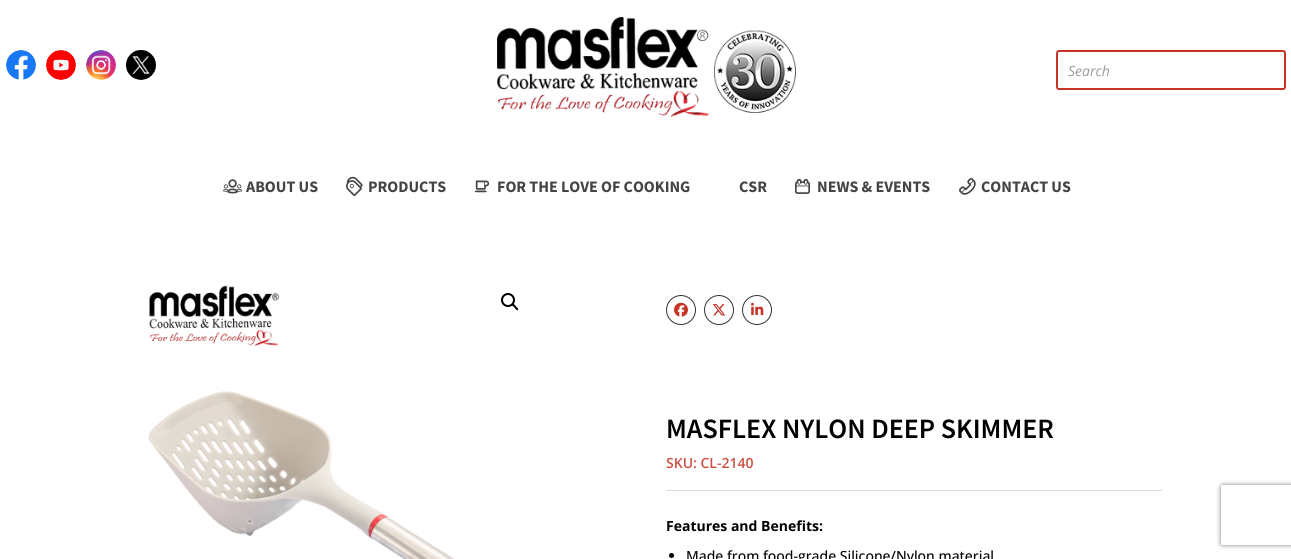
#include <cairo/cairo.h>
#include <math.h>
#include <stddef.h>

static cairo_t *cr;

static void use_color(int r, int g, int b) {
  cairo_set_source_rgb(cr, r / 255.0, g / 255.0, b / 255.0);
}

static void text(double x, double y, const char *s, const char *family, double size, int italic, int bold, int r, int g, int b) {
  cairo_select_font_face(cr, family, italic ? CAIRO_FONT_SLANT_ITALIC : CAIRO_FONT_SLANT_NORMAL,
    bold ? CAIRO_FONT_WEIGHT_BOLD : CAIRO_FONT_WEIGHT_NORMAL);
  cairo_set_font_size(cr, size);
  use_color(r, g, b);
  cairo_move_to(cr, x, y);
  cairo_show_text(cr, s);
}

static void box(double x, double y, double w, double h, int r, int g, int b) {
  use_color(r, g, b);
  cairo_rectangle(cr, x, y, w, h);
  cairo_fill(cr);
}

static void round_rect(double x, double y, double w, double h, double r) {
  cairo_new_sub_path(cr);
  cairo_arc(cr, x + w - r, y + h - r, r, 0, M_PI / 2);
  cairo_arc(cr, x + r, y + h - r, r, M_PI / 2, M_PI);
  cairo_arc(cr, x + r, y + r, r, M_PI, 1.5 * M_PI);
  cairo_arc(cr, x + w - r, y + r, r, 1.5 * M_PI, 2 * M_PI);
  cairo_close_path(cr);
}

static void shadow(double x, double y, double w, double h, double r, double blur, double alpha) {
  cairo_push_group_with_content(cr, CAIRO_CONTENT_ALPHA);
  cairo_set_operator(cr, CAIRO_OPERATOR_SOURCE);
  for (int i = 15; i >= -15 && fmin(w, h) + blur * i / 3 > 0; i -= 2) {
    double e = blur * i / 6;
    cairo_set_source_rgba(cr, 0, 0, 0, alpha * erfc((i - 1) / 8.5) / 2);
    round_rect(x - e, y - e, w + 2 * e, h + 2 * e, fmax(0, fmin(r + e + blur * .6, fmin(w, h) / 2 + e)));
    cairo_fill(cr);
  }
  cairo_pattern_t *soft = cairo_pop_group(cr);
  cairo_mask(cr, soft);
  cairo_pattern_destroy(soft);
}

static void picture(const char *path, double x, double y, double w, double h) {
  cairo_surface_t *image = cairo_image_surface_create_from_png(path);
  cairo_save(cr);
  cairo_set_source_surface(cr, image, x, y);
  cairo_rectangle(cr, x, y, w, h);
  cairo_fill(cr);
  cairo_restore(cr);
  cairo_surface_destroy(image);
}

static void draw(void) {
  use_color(255, 255, 255);
  cairo_paint(cr);
  picture("img_01.png", 6, 50, 30, 30);
  picture("img_02.png", 46, 50, 30, 30);
  picture("img_03.png", 86, 50, 30, 30);
  picture("img_04.png", 126, 50, 30, 30);
  round_rect(1057, 51, 228, 38, 2);
  use_color(198, 52, 39);
  cairo_stroke(cr);
  picture("img_05.png", 497, 17, 299, 100);
  picture("img_06.png", 223, 179, 20, 15);
  picture("img_07.png", 346, 176, 17, 20);
  picture("img_08.png", 475, 180, 15, 13);
  picture("img_09.png", 795, 178, 15, 16);
  picture("img_10.png", 959, 178, 17, 17);
  picture("img_11.png", 148, 285, 307, 274);
  cairo_arc(cr, 508, 300, 6, 0, 2 * M_PI);
  use_color(0, 0, 0);
  cairo_stroke(cr);
  cairo_new_path(cr);
  cairo_move_to(cr, 512.5, 304);
  cairo_curve_to(cr, 513.5, 303, 515.5, 305.5, 516, 306.5);
  cairo_curve_to(cr, 516.5, 307, 519, 308.5, 518, 310);
  cairo_curve_to(cr, 517, 311, 515, 308.5, 514.5, 307.5);
  cairo_curve_to(cr, 514, 307, 511, 305.5, 512.5, 304);
  cairo_close_path(cr);
  cairo_fill(cr);
  cairo_arc(cr, 681, 310, 14.5, 0, 2 * M_PI);
  use_color(51, 51, 51);
  cairo_set_line_width(cr, 1);
  cairo_stroke(cr);
  picture("img_12.png", 674, 302, 14, 15);
  cairo_arc(cr, 719, 310, 14.5, 0, 2 * M_PI);
  cairo_stroke(cr);
  picture("img_13.png", 712, 304, 14, 12);
  cairo_arc(cr, 757, 310, 14.5, 0, 2 * M_PI);
  cairo_stroke(cr);
  picture("img_14.png", 751, 302, 13, 13);
  box(666, 490, 496, 1, 221, 221, 221);
  use_color(0, 0, 0);
  cairo_arc(cr, 671.5, 555.5, 2.5, 0, 2 * M_PI);
  cairo_fill(cr);
  cairo_save(cr);
  cairo_set_fill_rule(cr, CAIRO_FILL_RULE_EVEN_ODD);
  cairo_new_path(cr);
  cairo_move_to(cr, 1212, 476);
  cairo_line_to(cr, 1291, 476);
  cairo_line_to(cr, 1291, 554);
  cairo_line_to(cr, 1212, 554);
  cairo_close_path(cr);
  cairo_move_to(cr, 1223, 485);
  cairo_line_to(cr, 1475, 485);
  cairo_curve_to(cr, 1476, 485, 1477, 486, 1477, 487);
  cairo_line_to(cr, 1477, 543);
  cairo_curve_to(cr, 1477, 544, 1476, 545, 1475, 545);
  cairo_line_to(cr, 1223, 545);
  cairo_curve_to(cr, 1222, 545, 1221, 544, 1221, 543);
  cairo_line_to(cr, 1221, 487);
  cairo_curve_to(cr, 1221, 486, 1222, 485, 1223, 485);
  cairo_close_path(cr);
  cairo_clip(cr);
  use_color(128, 128, 128);
  shadow(1221, 485, 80, 60, 2, 2.5, 1);
  cairo_restore(cr);
  text(1068, 76, "Search", "Open Sans", 14, 1, 0, 153, 153, 153);
  text(246, 192, "ABOUT US", "Source Sans Pro", 16, 0, 1, 68, 68, 68);
  text(368, 192, "PRODUCTS", "Source Sans Pro", 16, 0, 1, 68, 68, 68);
  text(497, 192, "FOR THE LOVE OF COOKING", "Source Sans Pro", 16, 0, 1, 68, 68, 68);
  text(739, 192, "CSR", "Source Sans Pro", 16, 0, 1, 68, 68, 68);
  text(817, 192, "NEWS & EVENTS", "Source Sans Pro", 16, 0, 1, 68, 68, 68);
  text(981, 192, "CONTACT US", "Source Sans Pro", 16, 0, 1, 68, 68, 68);
  text(666, 438, "MASFLEX NYLON DEEP SKIMMER", "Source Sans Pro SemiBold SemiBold", 28, 0, 0, 0, 0, 0);
  text(666, 468, "SKU: CL-2140", "Open Sans SemiBold", 14, 0, 0, 206, 80, 69);
  text(666, 531, "Features and Benefits:", "Open Sans", 14, 0, 1, 0, 0, 0);
  text(686, 561, "Made from food-grade Silicone/Nylon material", "Open Sans Medium", 14, 0, 0, 0, 0, 0);
}

int main(void) {
  cairo_surface_t *surface = cairo_image_surface_create(CAIRO_FORMAT_RGB24, 1291, 559);
  cr = cairo_create(surface);
  cairo_font_options_t *options = cairo_font_options_create();
  cairo_font_options_set_hint_metrics(options, CAIRO_HINT_METRICS_OFF);
  cairo_font_options_set_hint_style(options, CAIRO_HINT_STYLE_NONE);
  cairo_set_font_options(cr, options);
  cairo_set_miter_limit(cr, 4);
  draw();
  cairo_surface_write_to_png(surface, "out.png");
  cairo_font_options_destroy(options);
  cairo_destroy(cr);
  cairo_surface_destroy(surface);
  return 0;
}
